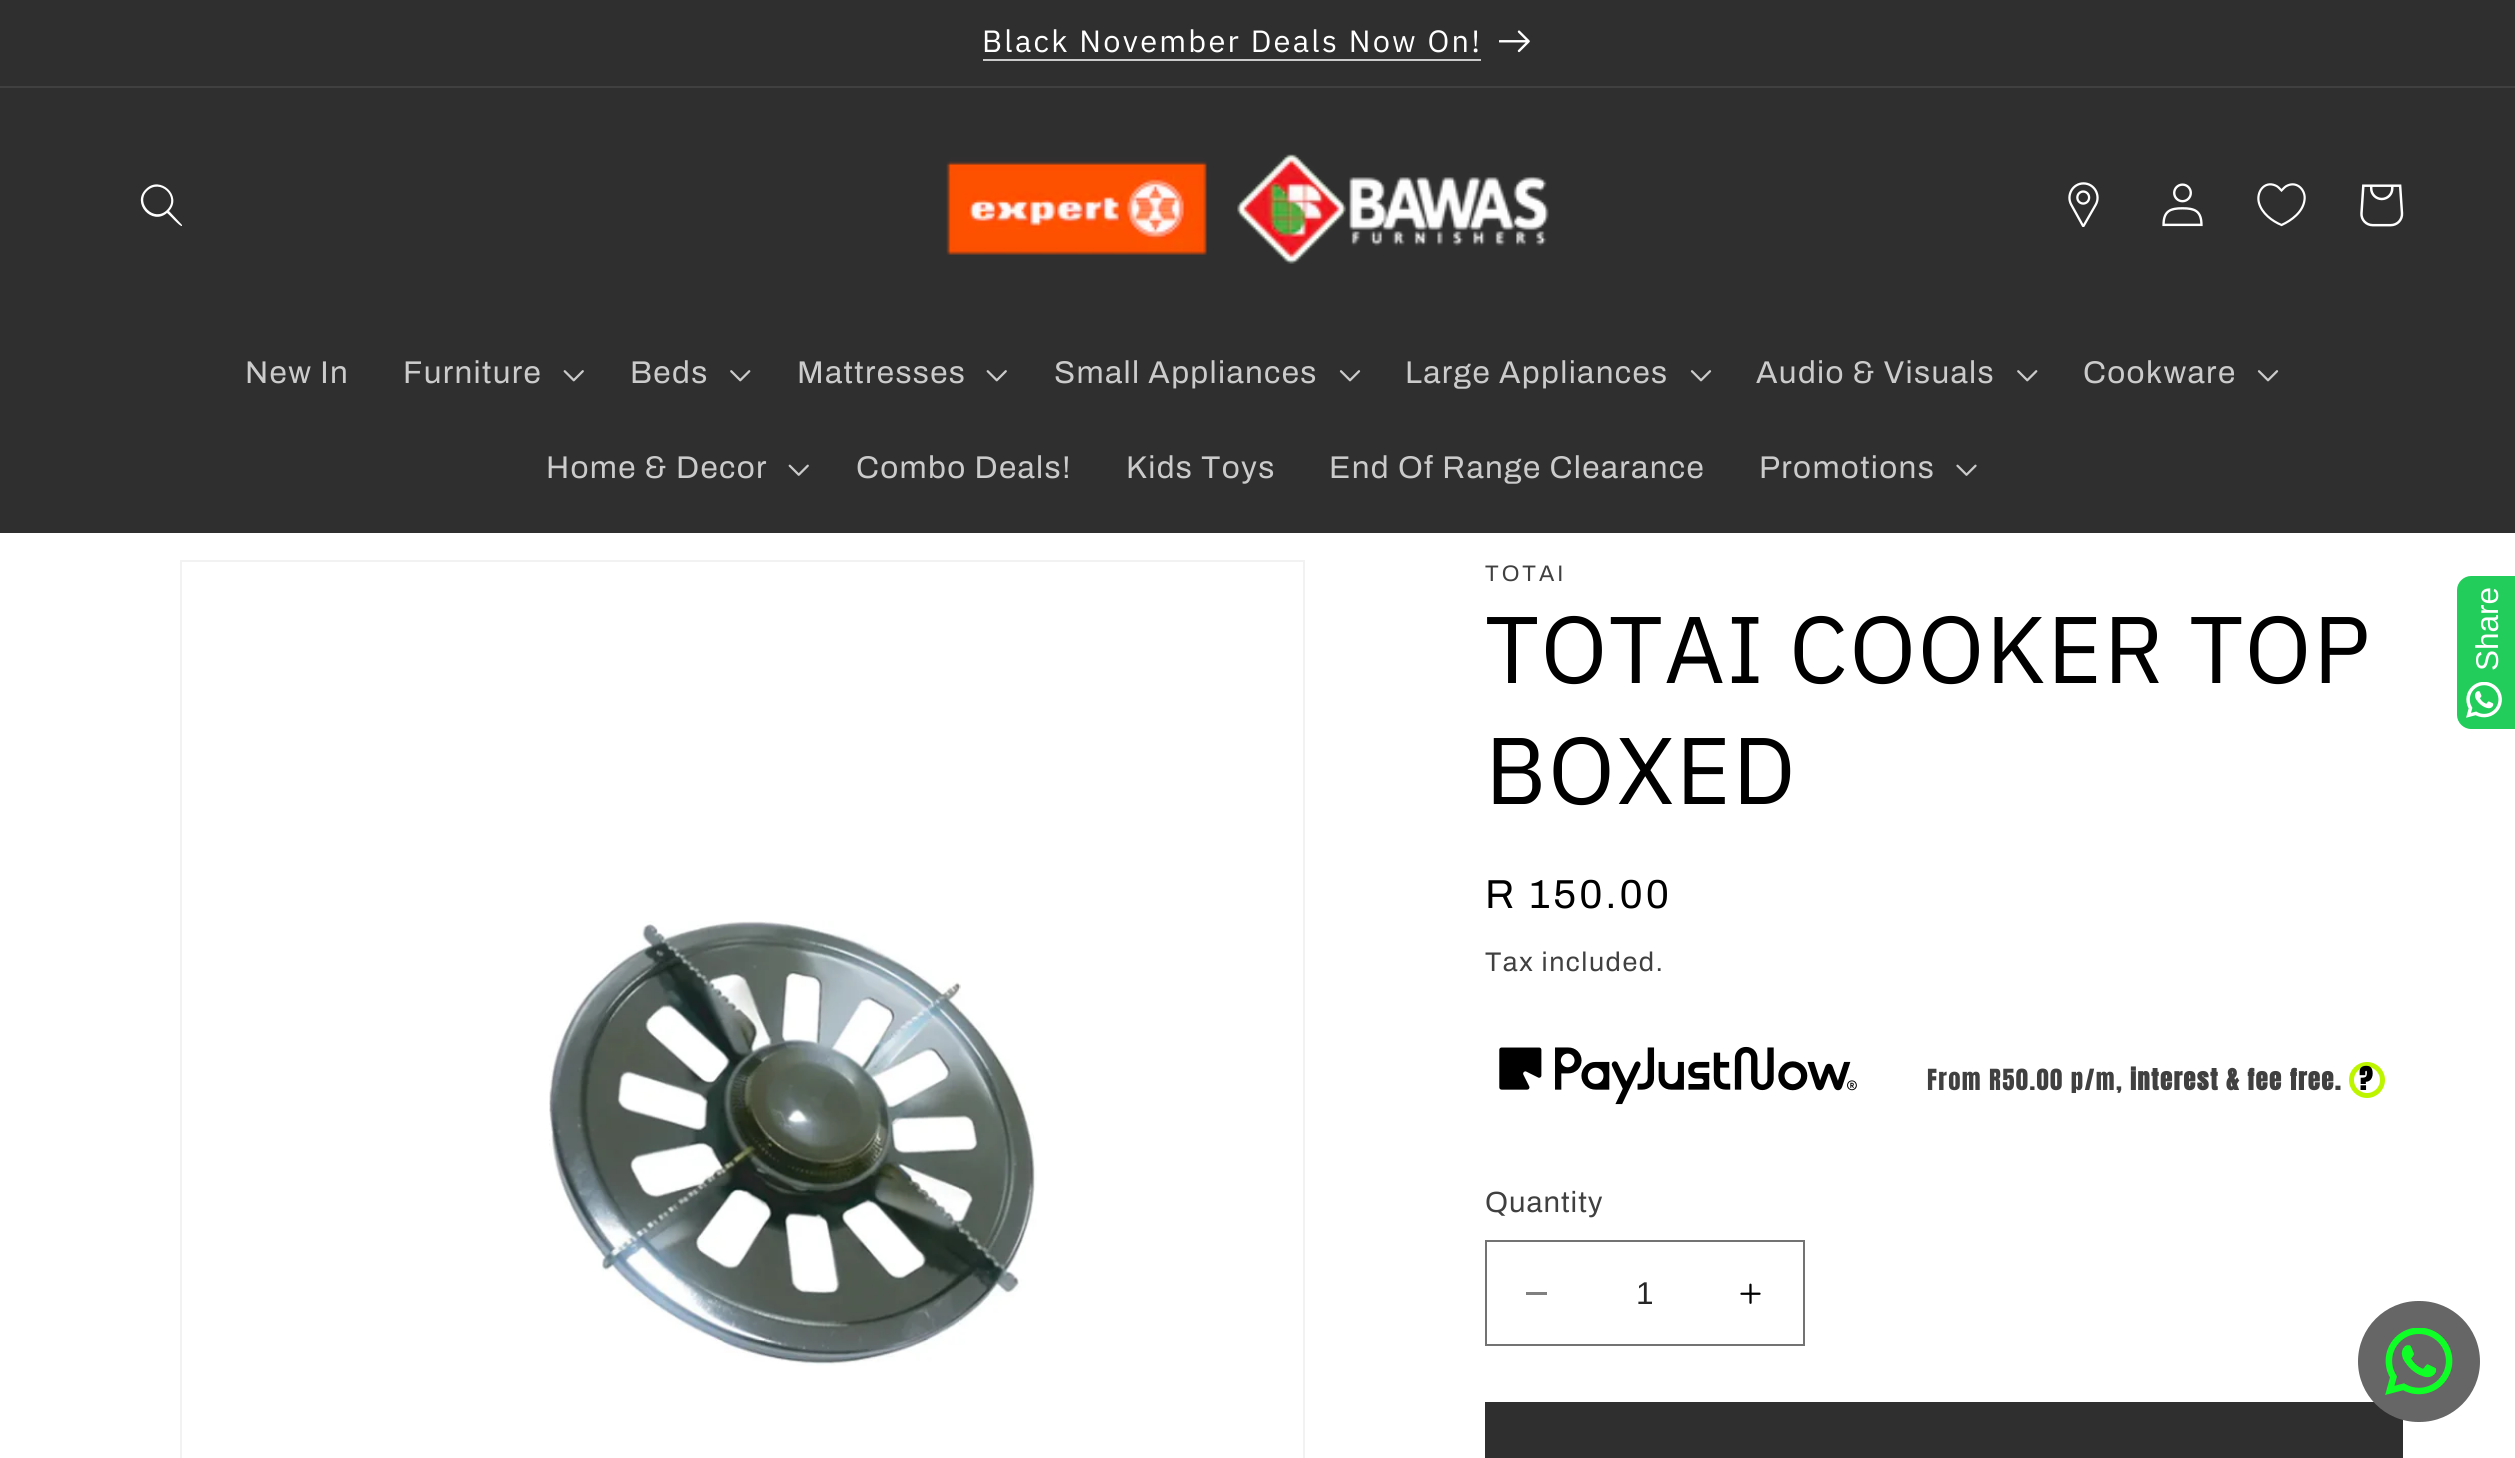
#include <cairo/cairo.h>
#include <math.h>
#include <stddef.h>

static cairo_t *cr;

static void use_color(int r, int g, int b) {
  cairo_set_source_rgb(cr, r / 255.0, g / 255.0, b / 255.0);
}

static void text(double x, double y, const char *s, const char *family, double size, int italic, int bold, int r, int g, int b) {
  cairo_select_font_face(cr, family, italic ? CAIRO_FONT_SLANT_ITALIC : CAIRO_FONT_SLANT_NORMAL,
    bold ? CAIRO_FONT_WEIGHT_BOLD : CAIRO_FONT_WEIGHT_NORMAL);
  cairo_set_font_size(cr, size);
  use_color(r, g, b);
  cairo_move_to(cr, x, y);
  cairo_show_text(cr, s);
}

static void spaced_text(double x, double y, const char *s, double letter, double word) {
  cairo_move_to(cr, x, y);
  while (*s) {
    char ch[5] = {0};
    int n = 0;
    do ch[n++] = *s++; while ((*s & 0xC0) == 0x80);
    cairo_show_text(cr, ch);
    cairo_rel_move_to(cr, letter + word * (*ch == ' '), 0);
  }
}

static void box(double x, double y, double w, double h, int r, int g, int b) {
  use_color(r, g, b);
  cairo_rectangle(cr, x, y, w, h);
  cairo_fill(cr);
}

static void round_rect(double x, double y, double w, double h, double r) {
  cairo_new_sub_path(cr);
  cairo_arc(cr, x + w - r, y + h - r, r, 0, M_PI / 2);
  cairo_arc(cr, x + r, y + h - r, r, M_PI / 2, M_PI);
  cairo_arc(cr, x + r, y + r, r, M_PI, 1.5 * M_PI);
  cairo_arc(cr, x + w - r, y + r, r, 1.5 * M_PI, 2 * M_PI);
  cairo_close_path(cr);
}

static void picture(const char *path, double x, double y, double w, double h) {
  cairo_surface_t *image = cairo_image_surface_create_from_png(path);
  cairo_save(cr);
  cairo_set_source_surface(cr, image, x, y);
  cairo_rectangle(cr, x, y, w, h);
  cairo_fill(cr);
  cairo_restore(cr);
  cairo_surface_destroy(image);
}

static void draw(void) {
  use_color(255, 255, 255);
  cairo_paint(cr);
  box(0, 0, 2515, 86, 48, 47, 47);
  box(0, 86, 2515, 2, 65, 64, 64);
  box(983, 59, 498, 2, 203, 203, 203);
  picture("img_01.png", 1499, 30, 31, 23);
  box(0, 88, 2515, 445, 48, 47, 47);
  use_color(255, 255, 255);
  cairo_set_fill_rule(cr, CAIRO_FILL_RULE_EVEN_ODD);
  cairo_new_path(cr);
  cairo_move_to(cr, 167, 210);
  cairo_curve_to(cr, 154, 223, 135, 203, 147, 191);
  cairo_curve_to(cr, 160, 178, 180, 197, 167, 210);
  cairo_close_path(cr);
  cairo_move_to(cr, 167, 213);
  cairo_curve_to(cr, 152, 226, 131, 203, 146, 189);
  cairo_curve_to(cr, 160, 175, 183, 196, 169, 211);
  cairo_line_to(cr, 182, 225);
  cairo_line_to(cr, 182, 226);
  cairo_curve_to(cr, 180, 227, 169, 214, 167, 213);
  cairo_close_path(cr);
  cairo_fill(cr);
  picture("img_02.png", 946, 154, 603, 110);
  picture("img_03.png", 2068, 182, 31, 45);
  picture("img_04.png", 2162, 183, 41, 44);
  cairo_new_path(cr);
  cairo_move_to(cr, 2281.5, 225);
  cairo_curve_to(cr, 2272, 221, 2262, 213.5, 2259, 203);
  cairo_curve_to(cr, 2256, 192.5, 2264, 180.5, 2275.5, 185.5);
  cairo_curve_to(cr, 2278, 186.5, 2279.5, 188.5, 2281.5, 190.5);
  cairo_curve_to(cr, 2283.5, 188.5, 2285, 186.5, 2287.5, 185.5);
  cairo_curve_to(cr, 2297.5, 181, 2306, 190.5, 2304.5, 200);
  cairo_curve_to(cr, 2303, 212, 2291.5, 220.5, 2281.5, 225);
  cairo_close_path(cr);
  cairo_set_line_width(cr, 2.2);
  cairo_stroke(cr);
  picture("img_05.png", 2360, 184, 44, 43);
  picture("img_06.png", 563, 370, 21, 12);
  picture("img_07.png", 730, 370, 21, 12);
  picture("img_06.png", 986, 370, 21, 12);
  picture("img_08.png", 1339, 370, 22, 12);
  picture("img_08.png", 1690, 370, 22, 12);
  picture("img_07.png", 2017, 370, 21, 12);
  picture("img_08.png", 2257, 370, 22, 12);
  picture("img_09.png", 788, 464, 21, 12);
  picture("img_10.png", 1956, 464, 21, 12);
  cairo_rectangle(cr, 181, 561, 1123, 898);
  use_color(242, 242, 242);
  cairo_set_line_width(cr, 2);
  cairo_stroke(cr);
  picture("img_11.png", 549, 921, 488, 445);
  picture("img_12.png", 1499, 1046, 358, 59);
  cairo_arc(cr, 2367, 1080, 15.5, 0, 2 * M_PI);
  use_color(189, 245, 0);
  cairo_set_line_width(cr, 5);
  cairo_stroke(cr);
  box(1526, 1292, 21, 3, 128, 128, 128);
  picture("img_13.png", 1740, 1283, 21, 21);
  cairo_rectangle(cr, 1486, 1241, 318, 104);
  use_color(115, 115, 115);
  cairo_set_line_width(cr, 2);
  cairo_stroke(cr);
  box(1485, 1402, 918, 56, 48, 47, 47);
  use_color(34, 205, 91);
  cairo_new_path(cr);
  cairo_move_to(cr, 2471, 576);
  cairo_line_to(cr, 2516, 576);
  cairo_line_to(cr, 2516, 729);
  cairo_line_to(cr, 2471, 729);
  cairo_curve_to(cr, 2463.5, 729, 2457, 722.5, 2457, 715);
  cairo_line_to(cr, 2457, 590);
  cairo_curve_to(cr, 2457, 582.5, 2463.5, 576, 2471, 576);
  cairo_close_path(cr);
  cairo_fill(cr);
  picture("img_14.png", 2466, 682, 36, 36);
  use_color(102, 102, 102);
  round_rect(2358, 1301, 122, 121, 60.5);
  cairo_fill(cr);
  picture("img_15.png", 2385, 1328, 68, 67);
  cairo_select_font_face(cr, "IBM Plex Sans", CAIRO_FONT_SLANT_NORMAL, CAIRO_FONT_WEIGHT_NORMAL);
  cairo_set_font_size(cr, 30.75);
  use_color(255, 255, 255);
  spaced_text(982, 52, "Black November Deals Now On!", 2.25, 0);
  cairo_select_font_face(cr, "Archivo", CAIRO_FONT_SLANT_NORMAL, CAIRO_FONT_WEIGHT_NORMAL);
  cairo_set_font_size(cr, 31.5);
  use_color(203, 203, 203);
  spaced_text(245, 383, "New In", 1.35, 0);
  spaced_text(403, 383, "Furniture", 1.35, 0);
  spaced_text(630, 383, "Beds", 1.35, 0);
  spaced_text(797, 383, "Mattresses", 1.35, 0);
  spaced_text(1054, 383, "Small Appliances", 1.35, 0);
  spaced_text(1405, 383, "Large Appliances", 1.35, 0);
  spaced_text(1756, 383, "Audio & Visuals", 1.35, 0);
  spaced_text(2083, 383, "Cookware", 1.35, 0);
  spaced_text(546, 478, "Home & Decor", 1.35, 0);
  spaced_text(856, 478, "Combo Deals!", 1.35, 0);
  spaced_text(1126, 478, "Kids Toys", 1.35, 0);
  spaced_text(1329, 478, "End Of Range Clearance", 1.35, 0);
  spaced_text(1759, 478, "Promotions", 1.35, 0);
  cairo_set_font_size(cr, 22.5);
  use_color(64, 64, 64);
  spaced_text(1485, 581, "TOTAI", 3, 0);
  cairo_select_font_face(cr, "IBM Plex Sans", CAIRO_FONT_SLANT_NORMAL, CAIRO_FONT_WEIGHT_NORMAL);
  cairo_set_font_size(cr, 94.5);
  use_color(0, 0, 0);
  spaced_text(1485, 683, "TOTAI COOKER TOP", 1.4, 0);
  spaced_text(1485, 804, "BOXED", 1.4, 0);
  cairo_select_font_face(cr, "Archivo", CAIRO_FONT_SLANT_NORMAL, CAIRO_FONT_WEIGHT_NORMAL);
  cairo_set_font_size(cr, 40.5);
  spaced_text(1485, 908, "R 150.00", 3, 0);
  cairo_set_font_size(cr, 27);
  use_color(64, 64, 64);
  spaced_text(1485, 971, "Tax included.", 1.5, 0);
  cairo_select_font_face(cr, "Anton", CAIRO_FONT_SLANT_NORMAL, CAIRO_FONT_WEIGHT_NORMAL);
  cairo_set_font_size(cr, 24.75);
  spaced_text(1927, 1090, "From R50.00 p/m,", 1.35, 0);
  cairo_select_font_face(cr, "Anton", CAIRO_FONT_SLANT_NORMAL, CAIRO_FONT_WEIGHT_BOLD);
  spaced_text(2130, 1090, "interest & fee free.", 1.35, 0);
  cairo_set_font_size(cr, 27);
  use_color(0, 0, 0);
  spaced_text(2359, 1090, "?", 1.35, 0);
  cairo_select_font_face(cr, "Archivo", CAIRO_FONT_SLANT_NORMAL, CAIRO_FONT_WEIGHT_NORMAL);
  cairo_set_font_size(cr, 29.25);
  use_color(64, 64, 64);
  spaced_text(1485, 1212, "Quantity", 1, 0);
  text(1636, 1304, "1", "Liberation Sans", 31.5, 0, 0, 38, 38, 38);
  cairo_save(cr);
  cairo_translate(cr, 2498, 671);
  cairo_rotate(cr, -90 * M_PI / 180);
  text(0, 0, "Share", "Liberation Sans", 31.5, 0, 0, 255, 255, 255);
  cairo_restore(cr);
}

int main(void) {
  cairo_surface_t *surface = cairo_image_surface_create(CAIRO_FORMAT_RGB24, 2515, 1458);
  cr = cairo_create(surface);
  cairo_font_options_t *options = cairo_font_options_create();
  cairo_font_options_set_hint_metrics(options, CAIRO_HINT_METRICS_OFF);
  cairo_font_options_set_hint_style(options, CAIRO_HINT_STYLE_NONE);
  cairo_set_font_options(cr, options);
  cairo_set_miter_limit(cr, 4);
  draw();
  cairo_surface_write_to_png(surface, "out.png");
  cairo_font_options_destroy(options);
  cairo_destroy(cr);
  cairo_surface_destroy(surface);
  return 0;
}
